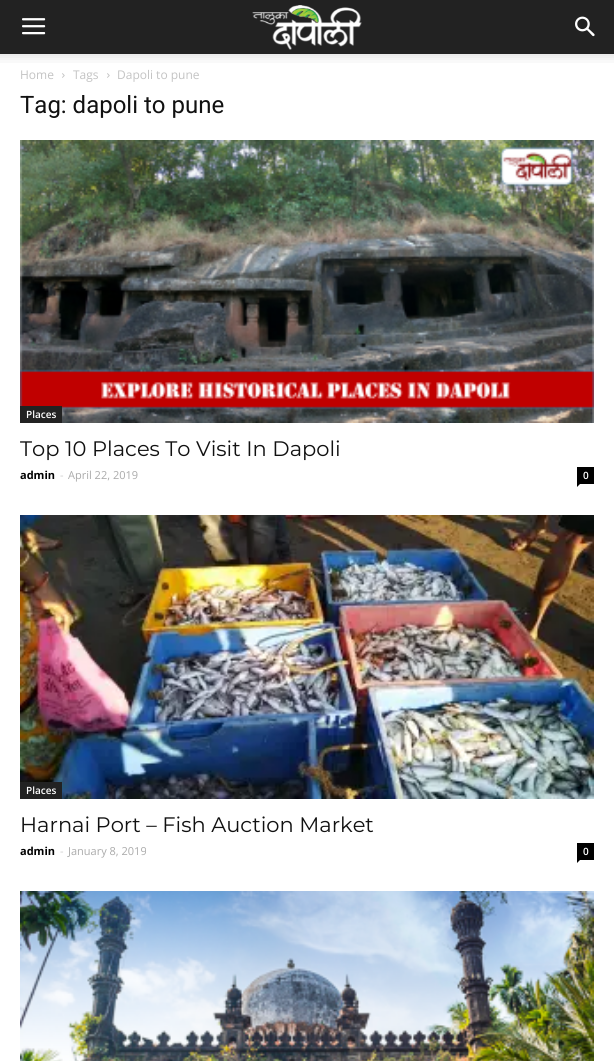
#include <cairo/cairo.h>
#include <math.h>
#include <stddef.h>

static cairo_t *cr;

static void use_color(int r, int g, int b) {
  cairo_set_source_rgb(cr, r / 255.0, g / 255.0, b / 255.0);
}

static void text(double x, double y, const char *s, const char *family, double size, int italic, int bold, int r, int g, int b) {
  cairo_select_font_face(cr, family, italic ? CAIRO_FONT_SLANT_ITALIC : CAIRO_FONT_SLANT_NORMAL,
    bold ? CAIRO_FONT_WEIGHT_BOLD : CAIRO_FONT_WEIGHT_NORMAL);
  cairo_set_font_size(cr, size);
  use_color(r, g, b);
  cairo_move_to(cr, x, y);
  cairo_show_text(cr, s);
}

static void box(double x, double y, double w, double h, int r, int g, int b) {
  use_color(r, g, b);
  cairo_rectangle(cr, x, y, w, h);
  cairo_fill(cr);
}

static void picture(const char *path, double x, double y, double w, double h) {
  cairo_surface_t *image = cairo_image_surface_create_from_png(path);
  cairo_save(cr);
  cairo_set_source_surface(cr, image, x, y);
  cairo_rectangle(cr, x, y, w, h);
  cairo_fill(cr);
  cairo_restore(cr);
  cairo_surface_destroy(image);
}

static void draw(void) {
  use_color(255, 255, 255);
  cairo_paint(cr);
  box(0, 0, 614, 54, 34, 34, 34);
  picture("img_01.png", 22, 18, 24, 17);
  picture("img_02.png", 252, 5, 110, 45);
  picture("img_03.png", 575, 16, 20, 21);
  picture("img_04.png", 0, 54, 614, 9);
  picture("img_05.png", 62, 73, 3, 5);
  picture("img_05.png", 107, 73, 3, 5);
  picture("img_06.png", 20, 140, 574, 283);
  box(20, 406, 42, 17, 34, 34, 34);
  box(577, 467, 17, 17, 0, 0, 0);
  cairo_new_path(cr);
  cairo_move_to(cr, 577, 484);
  cairo_line_to(cr, 580, 484);
  cairo_line_to(cr, 577, 487);
  cairo_close_path(cr);
  cairo_fill(cr);
  picture("img_07.png", 20, 515, 574, 284);
  box(20, 782, 42, 17, 34, 34, 34);
  box(577, 843, 17, 17, 0, 0, 0);
  cairo_new_path(cr);
  cairo_move_to(cr, 577, 860);
  cairo_line_to(cr, 580, 860);
  cairo_line_to(cr, 577, 863);
  cairo_close_path(cr);
  cairo_fill(cr);
  picture("img_08.png", 20, 891, 574, 170);
  text(20, 79, "Home", "Open Sans", 12, 0, 0, 195, 195, 195);
  text(73, 79, "Tags", "Open Sans", 12, 0, 0, 195, 195, 195);
  text(117, 79, "Dapoli to pune", "Open Sans", 12, 0, 0, 195, 195, 195);
  text(20, 113, "Tag: dapoli to pune", "Roboto", 24, 0, 0, 17, 17, 17);
  text(26, 418, "Places", "Open Sans SemiBold", 10, 0, 0, 255, 255, 255);
  text(20, 456, "Top 10 Places To Visit In Dapoli", "Montserrat Thin", 21, 0, 0, 17, 17, 17);
  text(20, 479, "admin", "Open Sans", 11, 0, 1, 0, 0, 0);
  text(60, 479, "-", "Open Sans", 11, 0, 0, 204, 204, 204);
  text(68, 479, "April 22, 2019", "Open Sans", 11, 0, 0, 170, 170, 170);
  text(583, 479, "0", "Open Sans SemiBold", 10, 0, 0, 255, 255, 255);
  text(26, 794, "Places", "Open Sans SemiBold", 10, 0, 0, 255, 255, 255);
  text(20, 832, "Harnai Port – Fish Auction Market", "Montserrat Thin", 21, 0, 0, 17, 17, 17);
  text(20, 855, "admin", "Open Sans", 11, 0, 1, 0, 0, 0);
  text(60, 855, "-", "Open Sans", 11, 0, 0, 204, 204, 204);
  text(68, 855, "January 8, 2019", "Open Sans", 11, 0, 0, 170, 170, 170);
  text(583, 855, "0", "Open Sans SemiBold", 10, 0, 0, 255, 255, 255);
}

int main(void) {
  cairo_surface_t *surface = cairo_image_surface_create(CAIRO_FORMAT_RGB24, 614, 1061);
  cr = cairo_create(surface);
  cairo_font_options_t *options = cairo_font_options_create();
  cairo_font_options_set_hint_metrics(options, CAIRO_HINT_METRICS_OFF);
  cairo_font_options_set_hint_style(options, CAIRO_HINT_STYLE_NONE);
  cairo_set_font_options(cr, options);
  cairo_set_miter_limit(cr, 4);
  draw();
  cairo_surface_write_to_png(surface, "out.png");
  cairo_font_options_destroy(options);
  cairo_destroy(cr);
  cairo_surface_destroy(surface);
  return 0;
}
